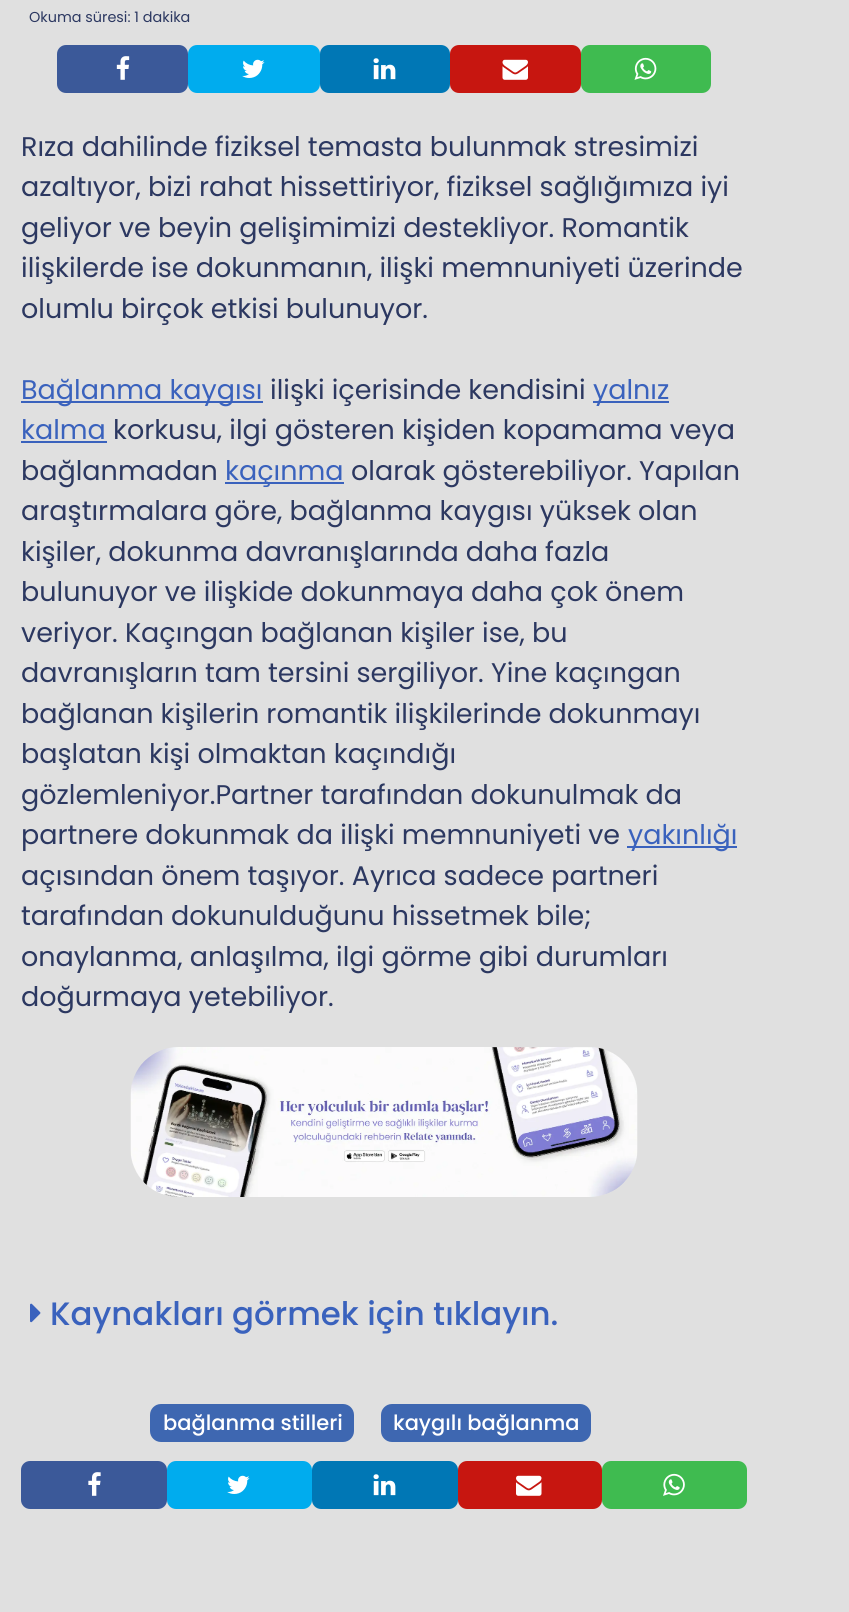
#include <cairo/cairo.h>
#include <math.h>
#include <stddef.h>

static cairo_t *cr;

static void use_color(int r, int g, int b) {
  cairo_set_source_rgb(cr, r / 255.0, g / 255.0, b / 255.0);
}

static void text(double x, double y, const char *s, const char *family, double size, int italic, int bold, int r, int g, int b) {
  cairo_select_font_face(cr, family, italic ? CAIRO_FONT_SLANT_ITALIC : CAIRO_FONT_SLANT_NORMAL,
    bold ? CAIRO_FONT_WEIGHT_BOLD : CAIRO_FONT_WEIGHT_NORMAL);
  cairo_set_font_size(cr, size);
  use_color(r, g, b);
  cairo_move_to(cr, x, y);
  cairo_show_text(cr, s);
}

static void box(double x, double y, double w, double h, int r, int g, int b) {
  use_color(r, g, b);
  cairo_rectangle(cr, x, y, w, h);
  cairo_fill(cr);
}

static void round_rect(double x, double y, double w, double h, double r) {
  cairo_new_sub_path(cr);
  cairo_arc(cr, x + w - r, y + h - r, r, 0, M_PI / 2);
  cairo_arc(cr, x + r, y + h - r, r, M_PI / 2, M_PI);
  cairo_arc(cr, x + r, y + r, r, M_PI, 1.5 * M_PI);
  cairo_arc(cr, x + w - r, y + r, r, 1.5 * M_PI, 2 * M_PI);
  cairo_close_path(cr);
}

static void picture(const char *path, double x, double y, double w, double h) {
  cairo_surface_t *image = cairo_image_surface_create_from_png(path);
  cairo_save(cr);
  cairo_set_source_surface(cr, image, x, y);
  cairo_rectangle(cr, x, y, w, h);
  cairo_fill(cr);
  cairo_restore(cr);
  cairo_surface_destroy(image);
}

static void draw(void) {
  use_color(224, 224, 224);
  cairo_paint(cr);
  use_color(59, 89, 153);
  round_rect(57, 45, 131, 48, 9);
  cairo_fill(cr);
  picture("img_01.png", 116, 56, 14, 24);
  use_color(0, 172, 238);
  round_rect(188, 45, 132, 48, 9);
  cairo_fill(cr);
  picture("img_02.png", 242, 59, 23, 19);
  use_color(0, 119, 181);
  round_rect(320, 45, 130, 48, 9);
  cairo_fill(cr);
  picture("img_03.png", 373, 58, 23, 22);
  use_color(199, 22, 16);
  round_rect(450, 45, 131, 48, 9);
  cairo_fill(cr);
  picture("img_04.png", 502, 59, 26, 21);
  use_color(63, 187, 80);
  round_rect(581, 45, 130, 48, 9);
  cairo_fill(cr);
  picture("img_05.png", 634, 57, 23, 23);
  box(21, 401, 242, 2, 58, 98, 189);
  box(593, 401, 76, 2, 58, 98, 189);
  box(21, 441, 86, 2, 58, 98, 189);
  box(225, 482, 119, 2, 58, 98, 189);
  box(627, 846, 110, 2, 58, 98, 189);
  picture("img_06.png", 130, 1047, 508, 150);
  picture("img_07.png", 30, 1303, 11, 20);
  use_color(62, 103, 177);
  round_rect(150, 1404, 204, 38, 11);
  cairo_fill(cr);
  round_rect(381, 1404, 210, 38, 11);
  cairo_fill(cr);
  use_color(59, 89, 153);
  round_rect(21, 1461, 146, 48, 9);
  cairo_fill(cr);
  picture("img_08.png", 88, 1472, 13, 24);
  use_color(0, 172, 238);
  round_rect(167, 1461, 145, 48, 9);
  cairo_fill(cr);
  picture("img_02.png", 227, 1475, 23, 19);
  use_color(0, 119, 181);
  round_rect(312, 1461, 146, 48, 9);
  cairo_fill(cr);
  picture("img_03.png", 373, 1474, 23, 22);
  use_color(199, 22, 16);
  round_rect(458, 1461, 144, 48, 9);
  cairo_fill(cr);
  picture("img_09.png", 516, 1475, 26, 21);
  use_color(63, 187, 80);
  round_rect(602, 1461, 145, 48, 9);
  cairo_fill(cr);
  picture("img_10.png", 663, 1473, 22, 23);
  text(29, 22, "Okuma süresi: 1 dakika", "Poppins", 14.4, 0, 0, 44, 56, 97);
  text(21, 156, "Rıza dahilinde fiziksel temasta bulunmak stresimizi", "Poppins", 27, 0, 0, 44, 56, 97);
  text(21, 196, "azaltıyor, bizi rahat hissettiriyor, fiziksel sağlığımıza iyi", "Poppins", 27, 0, 0, 44, 56, 97);
  text(21, 237, "geliyor ve beyin gelişimimizi destekliyor. Romantik", "Poppins", 27, 0, 0, 44, 56, 97);
  text(21, 277, "ilişkilerde ise dokunmanın, ilişki memnuniyeti üzerinde", "Poppins", 27, 0, 0, 44, 56, 97);
  text(21, 318, "olumlu birçok etkisi bulunuyor.", "Poppins", 27, 0, 0, 44, 56, 97);
  text(21, 399, "Bağlanma kaygısı", "Poppins", 27, 0, 0, 58, 98, 189);
  text(270, 399, "ilişki içerisinde kendisini", "Poppins", 27, 0, 0, 44, 56, 97);
  text(593, 399, "yalnız", "Poppins", 27, 0, 0, 58, 98, 189);
  text(21, 439, "kalma", "Poppins", 27, 0, 0, 58, 98, 189);
  text(113, 439, "korkusu, ilgi gösteren kişiden kopamama veya", "Poppins", 27, 0, 0, 44, 56, 97);
  text(21, 480, "bağlanmadan", "Poppins", 27, 0, 0, 44, 56, 97);
  text(225, 480, "kaçınma", "Poppins", 27, 0, 0, 58, 98, 189);
  text(351, 480, "olarak gösterebiliyor. Yapılan", "Poppins", 27, 0, 0, 44, 56, 97);
  text(21, 520, "araştırmalara göre, bağlanma kaygısı yüksek olan", "Poppins", 27, 0, 0, 44, 56, 97);
  text(21, 561, "kişiler, dokunma davranışlarında daha fazla", "Poppins", 27, 0, 0, 44, 56, 97);
  text(21, 601, "bulunuyor ve ilişkide dokunmaya daha çok önem", "Poppins", 27, 0, 0, 44, 56, 97);
  text(21, 642, "veriyor. Kaçıngan bağlanan kişiler ise, bu", "Poppins", 27, 0, 0, 44, 56, 97);
  text(21, 682, "davranışların tam tersini sergiliyor. Yine kaçıngan", "Poppins", 27, 0, 0, 44, 56, 97);
  text(21, 723, "bağlanan kişilerin romantik ilişkilerinde dokunmayı", "Poppins", 27, 0, 0, 44, 56, 97);
  text(21, 763, "başlatan kişi olmaktan kaçındığı", "Poppins", 27, 0, 0, 44, 56, 97);
  text(21, 804, "gözlemleniyor.Partner tarafından dokunulmak da", "Poppins", 27, 0, 0, 44, 56, 97);
  text(21, 844, "partnere dokunmak da ilişki memnuniyeti ve", "Poppins", 27, 0, 0, 44, 56, 97);
  text(628, 844, "yakınlığı", "Poppins", 27, 0, 0, 58, 98, 189);
  text(21, 885, "açısından önem taşıyor. Ayrıca sadece partneri", "Poppins", 27, 0, 0, 44, 56, 97);
  text(21, 925, "tarafından dokunulduğunu hissetmek bile;", "Poppins", 27, 0, 0, 44, 56, 97);
  text(21, 966, "onaylanma, anlaşılma, ilgi görme gibi durumları", "Poppins", 27, 0, 0, 44, 56, 97);
  text(21, 1006, "doğurmaya yetebiliyor.", "Poppins", 27, 0, 0, 44, 56, 97);
  text(50, 1325, "Kaynakları görmek için tıklayın.", "Poppins Medium", 32.4, 0, 0, 58, 98, 189);
  text(163, 1430, "bağlanma stilleri", "Poppins Medium", 21, 0, 0, 255, 255, 255);
  text(393, 1430, "kaygılı bağlanma", "Poppins Medium", 21, 0, 0, 255, 255, 255);
}

int main(void) {
  cairo_surface_t *surface = cairo_image_surface_create(CAIRO_FORMAT_RGB24, 849, 1612);
  cr = cairo_create(surface);
  cairo_font_options_t *options = cairo_font_options_create();
  cairo_font_options_set_hint_metrics(options, CAIRO_HINT_METRICS_OFF);
  cairo_font_options_set_hint_style(options, CAIRO_HINT_STYLE_NONE);
  cairo_set_font_options(cr, options);
  cairo_set_miter_limit(cr, 4);
  draw();
  cairo_surface_write_to_png(surface, "out.png");
  cairo_font_options_destroy(options);
  cairo_destroy(cr);
  cairo_surface_destroy(surface);
  return 0;
}
